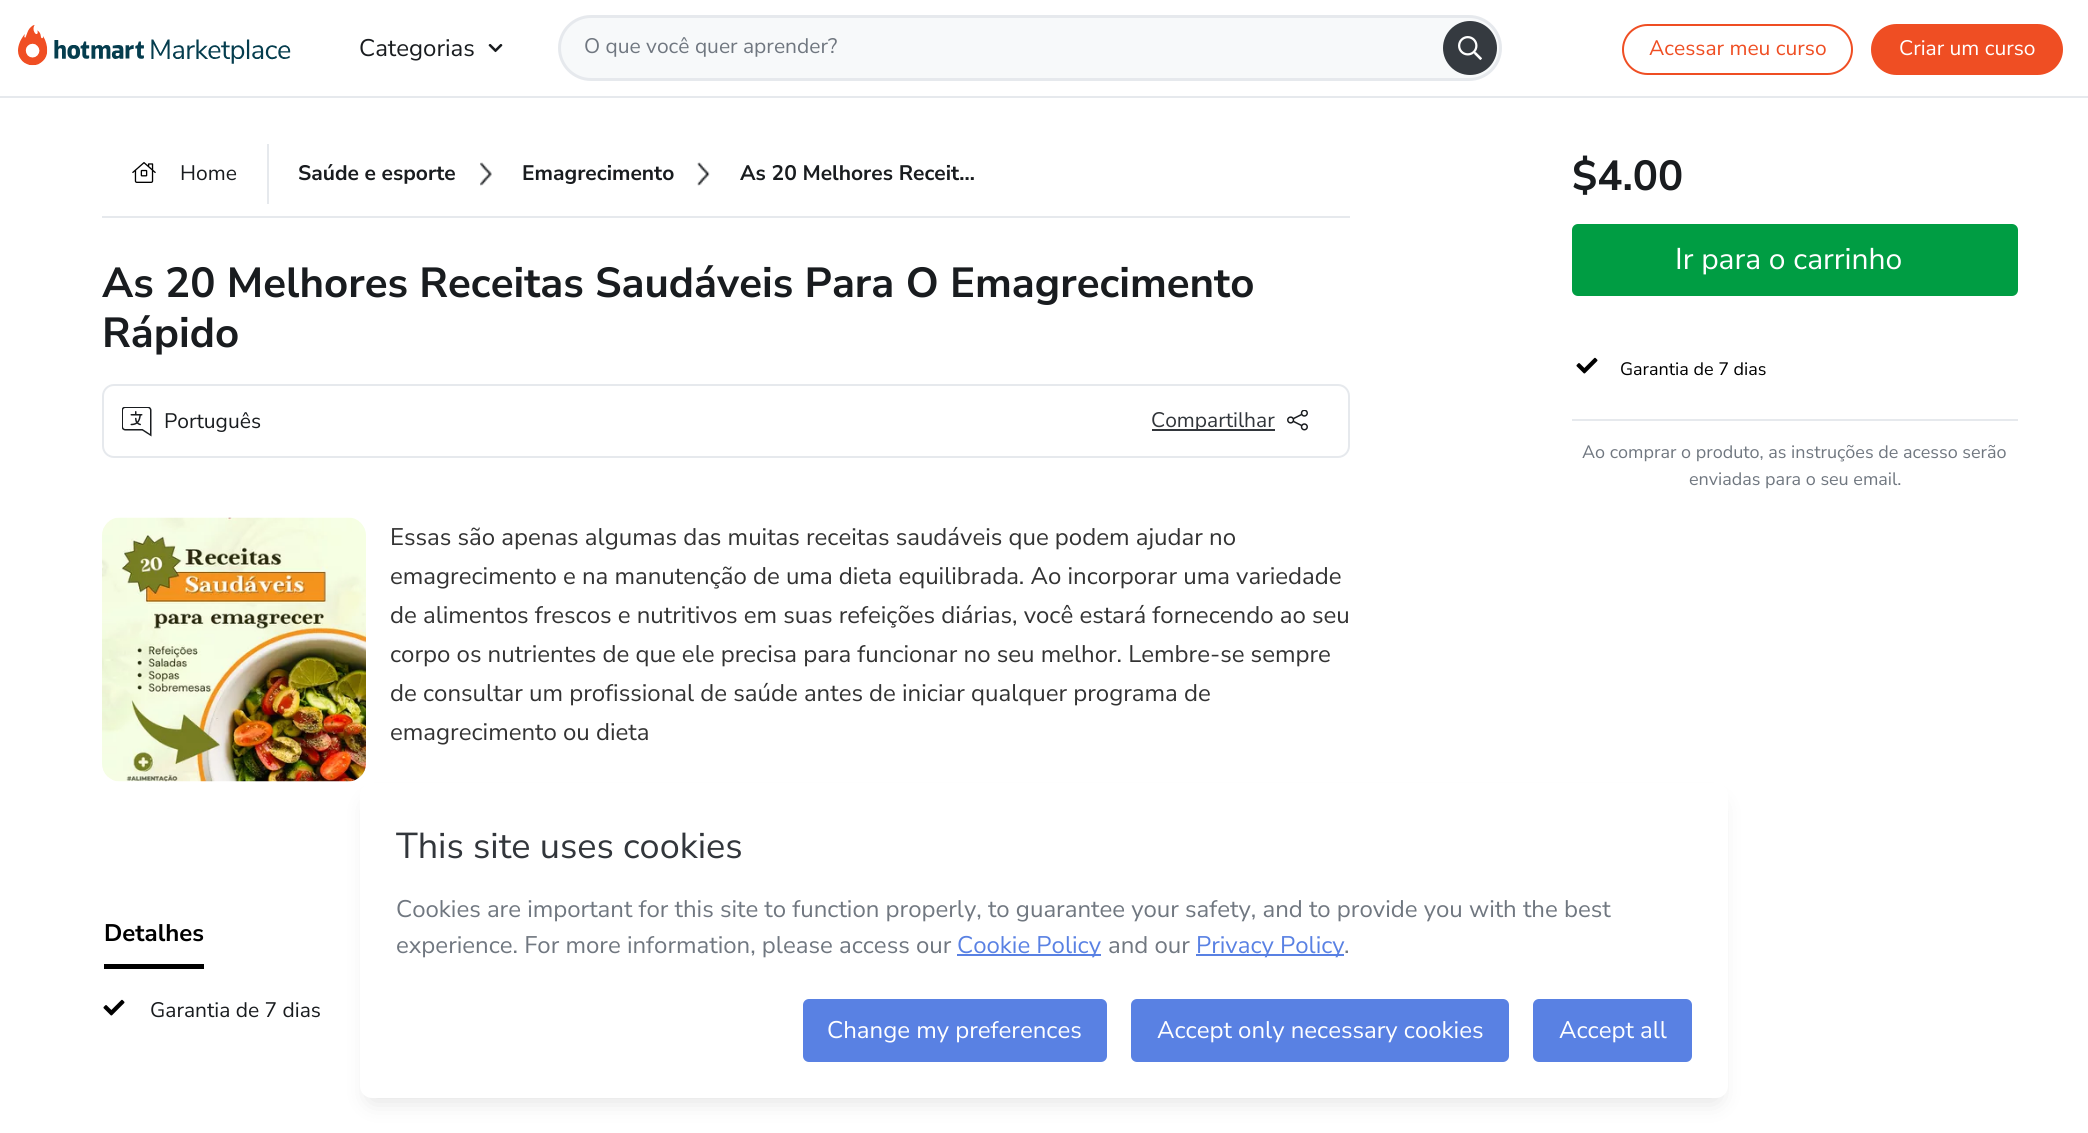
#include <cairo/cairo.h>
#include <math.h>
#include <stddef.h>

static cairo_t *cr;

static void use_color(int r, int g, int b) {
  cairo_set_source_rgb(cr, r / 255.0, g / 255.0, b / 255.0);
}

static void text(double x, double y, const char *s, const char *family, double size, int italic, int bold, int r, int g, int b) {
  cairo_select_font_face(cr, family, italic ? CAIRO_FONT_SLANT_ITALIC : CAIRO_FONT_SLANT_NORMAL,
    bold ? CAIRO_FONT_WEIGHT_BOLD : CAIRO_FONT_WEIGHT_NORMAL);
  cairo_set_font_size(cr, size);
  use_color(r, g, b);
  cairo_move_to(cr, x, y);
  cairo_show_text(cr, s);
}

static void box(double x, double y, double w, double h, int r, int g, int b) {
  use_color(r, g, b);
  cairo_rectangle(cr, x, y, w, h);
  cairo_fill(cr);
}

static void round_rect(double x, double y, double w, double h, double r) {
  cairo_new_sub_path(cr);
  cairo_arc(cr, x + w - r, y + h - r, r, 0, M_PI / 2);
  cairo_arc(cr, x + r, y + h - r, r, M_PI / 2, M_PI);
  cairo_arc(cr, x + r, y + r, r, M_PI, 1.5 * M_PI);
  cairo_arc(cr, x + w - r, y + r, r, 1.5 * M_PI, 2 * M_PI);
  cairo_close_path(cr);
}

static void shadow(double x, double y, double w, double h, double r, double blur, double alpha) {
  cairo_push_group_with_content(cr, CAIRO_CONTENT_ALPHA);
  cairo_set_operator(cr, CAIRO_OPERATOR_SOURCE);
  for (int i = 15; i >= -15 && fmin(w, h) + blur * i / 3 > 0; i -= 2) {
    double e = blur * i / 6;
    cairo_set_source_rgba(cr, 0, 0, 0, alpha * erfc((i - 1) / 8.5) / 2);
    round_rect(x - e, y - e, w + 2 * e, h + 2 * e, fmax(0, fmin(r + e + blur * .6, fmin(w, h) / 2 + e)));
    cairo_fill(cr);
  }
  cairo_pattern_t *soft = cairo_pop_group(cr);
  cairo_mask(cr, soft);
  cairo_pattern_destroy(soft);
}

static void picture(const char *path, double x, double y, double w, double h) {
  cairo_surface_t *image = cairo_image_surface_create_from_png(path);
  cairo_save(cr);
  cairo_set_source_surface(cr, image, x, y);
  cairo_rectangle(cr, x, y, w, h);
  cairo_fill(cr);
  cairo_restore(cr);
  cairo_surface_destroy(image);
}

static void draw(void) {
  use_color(255, 255, 255);
  cairo_paint(cr);
  box(0, 96, 2088, 2, 230, 233, 237);
  picture("img_01.png", 18, 24, 273, 42);
  picture("img_02.png", 488, 44, 15, 9);
  use_color(247, 249, 250);
  round_rect(559.5, 16.5, 941, 63, 31.5);
  cairo_fill_preserve(cr);
  use_color(230, 233, 237);
  cairo_set_line_width(cr, 3);
  cairo_stroke(cr);
  use_color(53, 58, 64);
  cairo_arc(cr, 1470, 48, 27, 0, 2 * M_PI);
  cairo_fill(cr);
  picture("img_03.png", 1458, 36, 24, 24);
  round_rect(1623, 25, 229, 49, 24.5);
  use_color(239, 78, 35);
  cairo_set_line_width(cr, 2);
  cairo_stroke(cr);
  round_rect(1872, 25, 190, 49, 24.5);
  cairo_fill_preserve(cr);
  cairo_stroke(cr);
  box(102, 216, 1248, 2, 230, 233, 237);
  box(267, 144, 2, 60, 230, 233, 237);
  picture("img_04.png", 132, 162, 24, 21);
  picture("img_05.png", 480, 162, 12, 24);
  picture("img_06.png", 697, 162, 13, 24);
  round_rect(103, 385, 1246, 72, 11);
  cairo_stroke(cr);
  picture("img_07.png", 122, 407, 30, 30);
  box(1152, 429, 123, 2, 50, 54, 59);
  picture("img_08.png", 1287, 410, 21, 21);
  picture("img_09.png", 102, 517, 264, 265);
  cairo_save(cr);
  cairo_rectangle(cr, 104, 915, 100, 54);
  cairo_clip(cr);
  use_color(0, 0, 0);
  cairo_set_fill_rule(cr, CAIRO_FILL_RULE_EVEN_ODD);
  cairo_new_path(cr);
  cairo_move_to(cr, -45, 766);
  cairo_line_to(cr, 352, 766);
  cairo_line_to(cr, 352, 1118);
  cairo_line_to(cr, -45, 1118);
  cairo_close_path(cr);
  cairo_move_to(cr, 104, 908);
  cairo_line_to(cr, 204, 908);
  cairo_curve_to(cr, 205, 908, 206, 908, 206, 909);
  cairo_line_to(cr, 206, 963);
  cairo_curve_to(cr, 206, 964, 205, 964, 204, 964);
  cairo_line_to(cr, 104, 964);
  cairo_curve_to(cr, 103, 964, 102, 964, 102, 963);
  cairo_line_to(cr, 102, 909);
  cairo_curve_to(cr, 102, 908, 103, 908, 104, 908);
  cairo_close_path(cr);
  cairo_fill(cr);
  cairo_restore(cr);
  picture("img_10.png", 103, 999, 22, 17);
  use_color(0, 157, 67);
  round_rect(1573, 225, 444, 70, 5);
  cairo_fill_preserve(cr);
  cairo_stroke(cr);
  picture("img_10.png", 1576, 357, 22, 17);
  box(1572, 419, 446, 2, 230, 233, 237);
  use_color(0, 0, 0);
  shadow(369, 804, 1350, 297, 3, 12, 0.12);
  use_color(255, 255, 255);
  round_rect(360, 783, 1368, 315, 12);
  cairo_fill(cr);
  box(957, 954, 144, 2, 89, 129, 227);
  box(1196, 954, 148, 2, 89, 129, 227);
  round_rect(804, 1000, 302, 61, 5);
  cairo_fill_preserve(cr);
  cairo_stroke(cr);
  round_rect(1132, 1000, 376, 61, 5);
  cairo_fill_preserve(cr);
  cairo_stroke(cr);
  round_rect(1534, 1000, 157, 61, 5);
  cairo_fill_preserve(cr);
  cairo_stroke(cr);
  text(359, 56, "Categorias", "Nunito Sans", 24, 0, 0, 25, 28, 31);
  text(584, 53, "O que você quer aprender?", "Nunito Sans", 21, 0, 0, 112, 119, 128);
  text(1649, 55, "Acessar meu curso", "Nunito Sans", 21, 0, 0, 239, 78, 35);
  text(1899, 55, "Criar um curso", "Nunito Sans", 21, 0, 0, 255, 255, 255);
  text(180, 180, "Home", "Nunito Sans", 21, 0, 0, 25, 28, 31);
  text(298, 180, "Saúde e esporte", "Nunito Sans", 21, 0, 1, 25, 28, 31);
  text(522, 180, "Emagrecimento", "Nunito Sans", 21, 0, 1, 25, 28, 31);
  text(740, 180, "As 20 Melhores Receit…", "Nunito Sans", 21, 0, 1, 25, 28, 31);
  text(102, 297, "As 20 Melhores Receitas Saudáveis Para O Emagrecimento", "Nunito Sans", 42, 0, 1, 25, 28, 31);
  text(102, 347, "Rápido", "Nunito Sans", 42, 0, 1, 25, 28, 31);
  text(164, 428, "Português", "Nunito Sans", 21, 0, 0, 25, 28, 31);
  text(1151, 427, "Compartilhar", "Nunito Sans", 21, 0, 0, 50, 54, 59);
  text(390, 545, "Essas são apenas algumas das muitas receitas saudáveis que podem ajudar no", "Nunito Sans", 24, 0, 0, 51, 51, 51);
  text(390, 584, "emagrecimento e na manutenção de uma dieta equilibrada. Ao incorporar uma variedade", "Nunito Sans", 24, 0, 0, 51, 51, 51);
  text(390, 623, "de alimentos frescos e nutritivos em suas refeições diárias, você estará fornecendo ao seu", "Nunito Sans", 24, 0, 0, 51, 51, 51);
  text(390, 662, "corpo os nutrientes de que ele precisa para funcionar no seu melhor. Lembre-se sempre", "Nunito Sans", 24, 0, 0, 51, 51, 51);
  text(390, 701, "de consultar um profissional de saúde antes de iniciar qualquer programa de", "Nunito Sans", 24, 0, 0, 51, 51, 51);
  text(390, 740, "emagrecimento ou dieta", "Nunito Sans", 24, 0, 0, 51, 51, 51);
  text(104, 941, "Detalhes", "Nunito Sans", 24, 0, 1, 0, 0, 0);
  text(150, 1017, "Garantia de 7 dias", "Nunito Sans", 21, 0, 0, 25, 28, 31);
  text(1572, 190, "$4.00", "Nunito Sans", 42, 0, 1, 25, 28, 31);
  text(1675, 269, "Ir para o carrinho", "Nunito Sans", 30, 0, 0, 255, 255, 255);
  text(1620, 375, "Garantia de 7 dias", "Nunito Sans", 18, 0, 0, 0, 0, 0);
  text(1582, 458, "Ao comprar o produto, as instruções de acesso serão", "Nunito Sans", 18, 0, 0, 112, 119, 128);
  text(1689, 485, "enviadas para o seu email.", "Nunito Sans", 18, 0, 0, 112, 119, 128);
  text(396, 858, "This site uses cookies", "Nunito Sans", 36, 0, 0, 50, 54, 59);
  text(396, 917, "Cookies are important for this site to function properly, to guarantee your safety, and to provide you with the best", "Nunito Sans", 24, 0, 0, 112, 119, 128);
  text(396, 953, "experience. For more information, please access our", "Nunito Sans", 24, 0, 0, 112, 119, 128);
  text(957, 953, "Cookie Policy", "Nunito Sans", 24, 0, 0, 89, 129, 227);
  text(1108, 953, "and our", "Nunito Sans", 24, 0, 0, 112, 119, 128);
  text(1196, 953, "Privacy Policy", "Nunito Sans", 24, 0, 0, 89, 129, 227);
  text(1344, 953, ".", "Nunito Sans", 24, 0, 0, 112, 119, 128);
  text(827, 1038, "Change my preferences", "Nunito Sans", 24, 0, 0, 255, 255, 255);
  text(1157, 1038, "Accept only necessary cookies", "Nunito Sans", 24, 0, 0, 255, 255, 255);
  text(1559, 1038, "Accept all", "Nunito Sans", 24, 0, 0, 255, 255, 255);
}

int main(void) {
  cairo_surface_t *surface = cairo_image_surface_create(CAIRO_FORMAT_RGB24, 2088, 1133);
  cr = cairo_create(surface);
  cairo_font_options_t *options = cairo_font_options_create();
  cairo_font_options_set_hint_metrics(options, CAIRO_HINT_METRICS_OFF);
  cairo_font_options_set_hint_style(options, CAIRO_HINT_STYLE_NONE);
  cairo_set_font_options(cr, options);
  cairo_set_miter_limit(cr, 4);
  draw();
  cairo_surface_write_to_png(surface, "out.png");
  cairo_font_options_destroy(options);
  cairo_destroy(cr);
  cairo_surface_destroy(surface);
  return 0;
}
